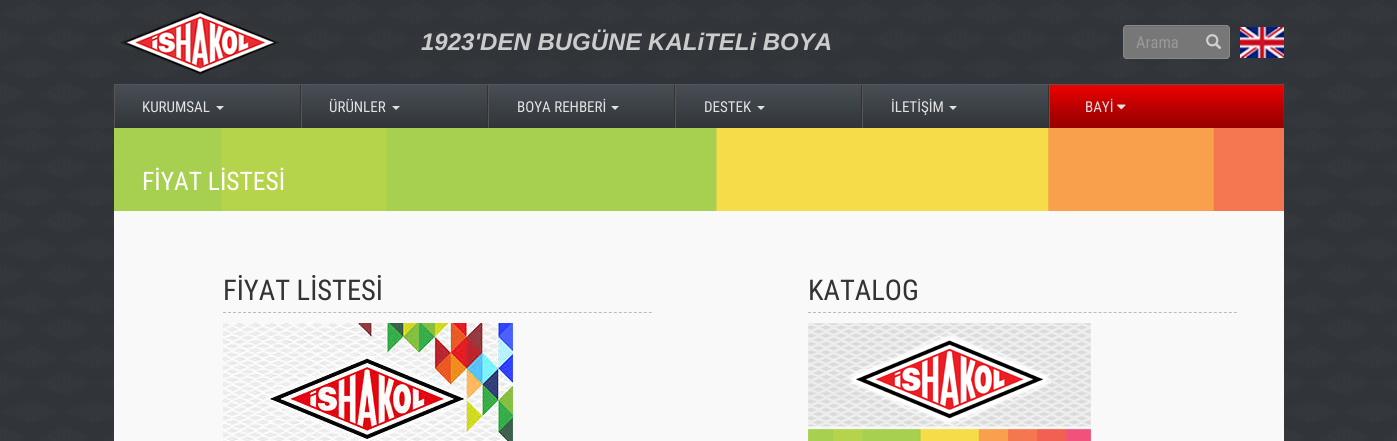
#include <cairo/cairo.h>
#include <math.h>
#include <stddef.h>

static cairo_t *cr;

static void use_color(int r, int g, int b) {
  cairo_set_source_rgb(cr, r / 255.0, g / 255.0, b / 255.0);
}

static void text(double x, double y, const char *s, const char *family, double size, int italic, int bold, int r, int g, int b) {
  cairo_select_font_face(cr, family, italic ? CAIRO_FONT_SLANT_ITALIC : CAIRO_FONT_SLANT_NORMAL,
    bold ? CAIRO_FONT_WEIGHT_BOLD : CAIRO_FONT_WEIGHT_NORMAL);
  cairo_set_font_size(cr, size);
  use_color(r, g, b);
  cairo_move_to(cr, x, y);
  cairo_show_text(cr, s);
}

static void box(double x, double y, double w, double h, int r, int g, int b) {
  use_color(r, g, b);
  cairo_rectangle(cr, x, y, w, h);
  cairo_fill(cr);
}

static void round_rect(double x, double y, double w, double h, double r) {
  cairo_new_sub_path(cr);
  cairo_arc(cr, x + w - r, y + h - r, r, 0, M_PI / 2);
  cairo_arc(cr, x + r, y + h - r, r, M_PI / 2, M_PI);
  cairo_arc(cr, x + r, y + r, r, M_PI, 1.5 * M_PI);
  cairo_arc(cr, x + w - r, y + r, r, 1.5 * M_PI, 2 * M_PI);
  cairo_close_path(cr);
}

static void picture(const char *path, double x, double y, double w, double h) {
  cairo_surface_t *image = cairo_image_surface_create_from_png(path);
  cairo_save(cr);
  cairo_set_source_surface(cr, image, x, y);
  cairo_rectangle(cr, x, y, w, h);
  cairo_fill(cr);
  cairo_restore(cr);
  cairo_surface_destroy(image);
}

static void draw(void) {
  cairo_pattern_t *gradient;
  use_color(255, 255, 255);
  cairo_paint(cr);
  picture("img_01.png", 0, 0, 1397, 128);
  picture("img_02.png", 120, 10, 160, 65);
  use_color(119, 119, 119);
  round_rect(1123, 25, 107, 34, 4);
  cairo_fill(cr);
  use_color(110, 110, 110);
  cairo_new_path(cr);
  cairo_move_to(cr, 1127, 27);
  cairo_line_to(cr, 1226, 27);
  cairo_curve_to(cr, 1228, 27, 1229, 28, 1229, 30);
  cairo_curve_to(cr, 1229, 22, 1212, 26, 1210, 26);
  cairo_line_to(cr, 1144, 26);
  cairo_curve_to(cr, 1141, 26, 1124, 22, 1124, 30);
  cairo_curve_to(cr, 1124, 28, 1125, 27, 1127, 27);
  cairo_close_path(cr);
  cairo_fill(cr);
  round_rect(1123.5, 25.5, 106, 33, 3.5);
  use_color(136, 136, 136);
  cairo_set_line_width(cr, 1);
  cairo_stroke(cr);
  picture("img_03.png", 1206, 34, 15, 15);
  picture("img_04.png", 1240, 27, 44, 31);
  gradient = cairo_pattern_create_linear(699, 85, 699, 128);
  cairo_pattern_add_color_stop_rgba(gradient, 0, 0.282, 0.306, 0.333, 1);
  cairo_pattern_add_color_stop_rgba(gradient, 0.6, 0.227, 0.247, 0.267, 1);
  cairo_pattern_add_color_stop_rgba(gradient, 1, 0.192, 0.208, 0.224, 1);
  cairo_set_source(cr, gradient);
  cairo_pattern_destroy(gradient);
  cairo_rectangle(cr, 115, 85, 1169, 43);
  cairo_fill(cr);
  box(114, 84, 1170, 1, 85, 85, 85);
  box(300, 85, 1, 43, 51, 51, 51);
  box(114, 85, 1, 43, 85, 85, 85);
  use_color(226, 226, 226);
  cairo_new_path(cr);
  cairo_move_to(cr, 216, 106);
  cairo_line_to(cr, 224, 106);
  cairo_line_to(cr, 220, 110);
  cairo_close_path(cr);
  cairo_fill(cr);
  box(487, 85, 1, 43, 51, 51, 51);
  box(301, 85, 1, 43, 85, 85, 85);
  use_color(226, 226, 226);
  cairo_new_path(cr);
  cairo_move_to(cr, 392, 106);
  cairo_line_to(cr, 400, 106);
  cairo_line_to(cr, 396, 110);
  cairo_close_path(cr);
  cairo_fill(cr);
  box(674, 85, 1, 43, 51, 51, 51);
  box(488, 85, 1, 43, 85, 85, 85);
  use_color(226, 226, 226);
  cairo_new_path(cr);
  cairo_move_to(cr, 611, 106);
  cairo_line_to(cr, 619, 106);
  cairo_line_to(cr, 615, 110);
  cairo_close_path(cr);
  cairo_fill(cr);
  box(861, 85, 1, 43, 51, 51, 51);
  box(675, 85, 1, 43, 85, 85, 85);
  use_color(226, 226, 226);
  cairo_new_path(cr);
  cairo_move_to(cr, 757, 106);
  cairo_line_to(cr, 765, 106);
  cairo_line_to(cr, 761, 110);
  cairo_close_path(cr);
  cairo_fill(cr);
  box(1048, 85, 1, 43, 51, 51, 51);
  box(862, 85, 1, 43, 85, 85, 85);
  use_color(226, 226, 226);
  cairo_new_path(cr);
  cairo_move_to(cr, 949, 106);
  cairo_line_to(cr, 957, 106);
  cairo_line_to(cr, 953, 110);
  cairo_close_path(cr);
  cairo_fill(cr);
  gradient = cairo_pattern_create_linear(1167, 85, 1167, 128);
  cairo_pattern_add_color_stop_rgba(gradient, 0, 0.933, 0, 0, 1);
  cairo_pattern_add_color_stop_rgba(gradient, 0.7, 0.667, 0, 0, 1);
  cairo_pattern_add_color_stop_rgba(gradient, 1, 0.6, 0, 0, 1);
  cairo_set_source(cr, gradient);
  cairo_pattern_destroy(gradient);
  cairo_rectangle(cr, 1050, 85, 233, 43);
  cairo_fill(cr);
  box(1049, 85, 1, 43, 85, 85, 85);
  picture("img_05.png", 1117, 104, 9, 6);
  picture("img_06.png", 0, 128, 1397, 313);
  box(114, 211, 1170, 230, 249, 249, 249);
  picture("img_07.png", 114, 128, 1170, 83);
  cairo_new_path(cr);
  cairo_move_to(cr, 223, 312.5);
  cairo_line_to(cr, 652, 312.5);
  use_color(187, 187, 187);
  cairo_set_dash(cr, (double[]){3, 2.01}, 2, 0);
  cairo_stroke(cr);
  picture("img_08.png", 223, 323, 290, 118);
  cairo_new_path(cr);
  cairo_move_to(cr, 808, 312.5);
  cairo_line_to(cr, 1237, 312.5);
  cairo_stroke(cr);
  picture("img_09.png", 808, 323, 283, 118);
  text(421, 50, "1923'DEN BUGÜNE KALiTELi BOYA", "Liberation Sans", 24, 1, 1, 204, 204, 204);
  text(1136, 48, "Arama", "Roboto Condensed", 16.5, 0, 0, 153, 153, 153);
  text(142, 112, "KURUMSAL", "Roboto Condensed", 15, 0, 0, 226, 226, 226);
  text(329, 112, "ÜRÜNLER", "Roboto Condensed", 15, 0, 0, 226, 226, 226);
  text(517, 112, "BOYA REHBERİ", "Roboto Condensed", 15, 0, 0, 226, 226, 226);
  text(704, 112, "DESTEK", "Roboto Condensed", 15, 0, 0, 226, 226, 226);
  text(891, 112, "İLETİŞİM", "Roboto Condensed", 15, 0, 0, 226, 226, 226);
  text(1085, 112, "BAYİ", "Roboto Condensed", 15, 0, 0, 226, 226, 226);
  text(142, 190, "FİYAT LİSTESİ", "Roboto Condensed", 25.5, 0, 0, 255, 255, 255);
  text(223, 300, "FİYAT LİSTESİ", "Roboto Condensed", 28.5, 0, 0, 51, 51, 51);
  text(808, 300, "KATALOG", "Roboto Condensed", 28.5, 0, 0, 51, 51, 51);
}

int main(void) {
  cairo_surface_t *surface = cairo_image_surface_create(CAIRO_FORMAT_RGB24, 1397, 441);
  cr = cairo_create(surface);
  cairo_font_options_t *options = cairo_font_options_create();
  cairo_font_options_set_hint_metrics(options, CAIRO_HINT_METRICS_OFF);
  cairo_font_options_set_hint_style(options, CAIRO_HINT_STYLE_NONE);
  cairo_set_font_options(cr, options);
  cairo_set_miter_limit(cr, 4);
  draw();
  cairo_surface_write_to_png(surface, "out.png");
  cairo_font_options_destroy(options);
  cairo_destroy(cr);
  cairo_surface_destroy(surface);
  return 0;
}
